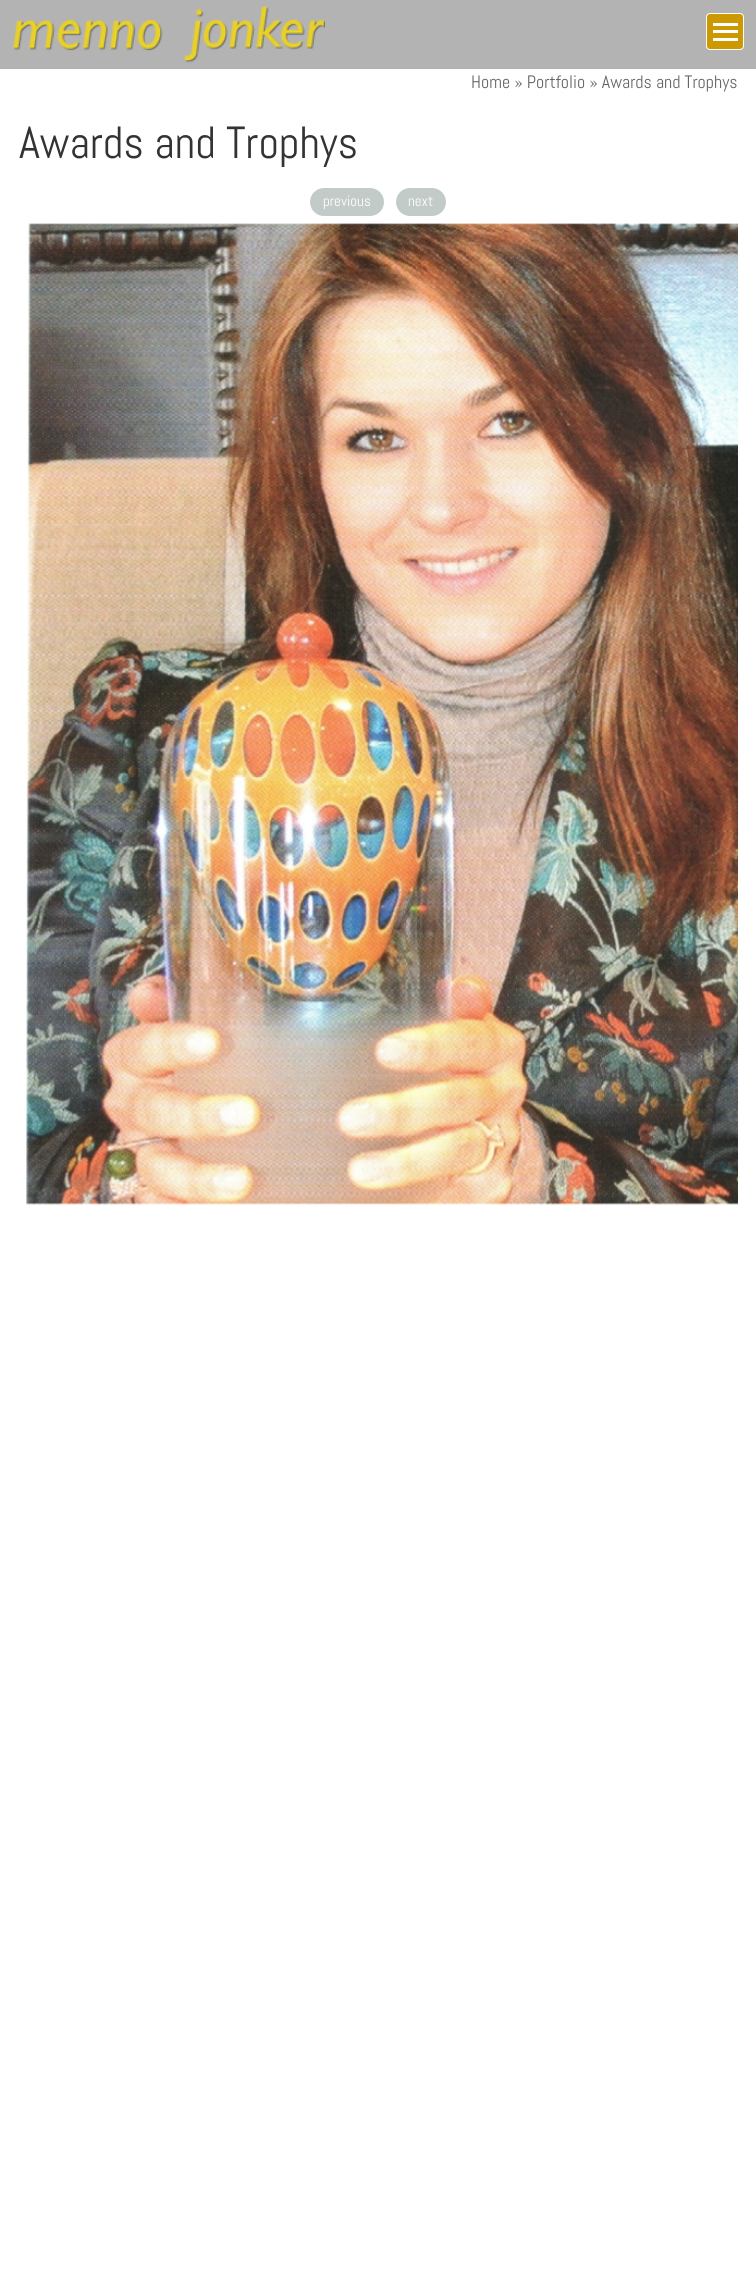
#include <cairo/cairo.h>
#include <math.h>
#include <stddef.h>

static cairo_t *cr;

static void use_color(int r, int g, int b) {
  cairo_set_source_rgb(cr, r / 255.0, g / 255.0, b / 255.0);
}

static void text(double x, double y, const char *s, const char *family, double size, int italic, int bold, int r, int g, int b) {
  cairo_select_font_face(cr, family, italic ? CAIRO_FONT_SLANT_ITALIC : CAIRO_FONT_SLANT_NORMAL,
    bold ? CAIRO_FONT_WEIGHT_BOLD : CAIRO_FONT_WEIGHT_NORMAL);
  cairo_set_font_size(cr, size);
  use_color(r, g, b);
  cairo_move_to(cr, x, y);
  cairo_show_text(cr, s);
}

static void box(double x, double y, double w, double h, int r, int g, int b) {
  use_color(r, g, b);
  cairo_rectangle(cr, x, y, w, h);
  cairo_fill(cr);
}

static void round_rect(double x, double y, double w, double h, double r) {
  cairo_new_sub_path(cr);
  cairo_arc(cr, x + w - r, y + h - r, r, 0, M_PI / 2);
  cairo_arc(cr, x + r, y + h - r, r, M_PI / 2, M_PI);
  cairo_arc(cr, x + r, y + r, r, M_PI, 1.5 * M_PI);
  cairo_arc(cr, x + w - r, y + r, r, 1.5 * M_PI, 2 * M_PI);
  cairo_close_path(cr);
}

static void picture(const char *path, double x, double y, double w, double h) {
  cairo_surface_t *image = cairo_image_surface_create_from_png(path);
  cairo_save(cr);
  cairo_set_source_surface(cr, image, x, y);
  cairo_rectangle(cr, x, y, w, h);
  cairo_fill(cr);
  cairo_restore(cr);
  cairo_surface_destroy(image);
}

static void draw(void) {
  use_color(255, 255, 255);
  cairo_paint(cr);
  box(0, 0, 756, 69, 179, 179, 179);
  picture("img_01.png", 12, 6, 313, 57);
  use_color(204, 153, 0);
  round_rect(706.5, 13.5, 37, 36, 3.5);
  cairo_fill_preserve(cr);
  use_color(255, 255, 255);
  cairo_set_line_width(cr, 1);
  cairo_stroke(cr);
  box(713, 23, 25, 3, 255, 255, 255);
  box(713, 30, 25, 3, 255, 255, 255);
  box(713, 38, 25, 3, 255, 255, 255);
  use_color(195, 203, 200);
  round_rect(310, 188, 74, 28, 14);
  cairo_fill(cr);
  round_rect(396, 188, 50, 28, 14);
  cairo_fill(cr);
  picture("img_02.png", 26, 223, 712, 982);
  text(471, 88, "Home » Portfolio » Awards and Trophys", "Abel", 18, 0, 0, 102, 102, 102);
  text(19, 158, "Awards and Trophys", "Abel", 45, 0, 0, 51, 51, 51);
  text(323, 206, "previous", "Abel", 15, 0, 0, 255, 255, 255);
  text(408, 206, "next", "Abel", 15, 0, 0, 255, 255, 255);
}

int main(void) {
  cairo_surface_t *surface = cairo_image_surface_create(CAIRO_FORMAT_RGB24, 756, 2292);
  cr = cairo_create(surface);
  cairo_font_options_t *options = cairo_font_options_create();
  cairo_font_options_set_hint_metrics(options, CAIRO_HINT_METRICS_OFF);
  cairo_font_options_set_hint_style(options, CAIRO_HINT_STYLE_NONE);
  cairo_set_font_options(cr, options);
  cairo_set_miter_limit(cr, 4);
  draw();
  cairo_surface_write_to_png(surface, "out.png");
  cairo_font_options_destroy(options);
  cairo_destroy(cr);
  cairo_surface_destroy(surface);
  return 0;
}
